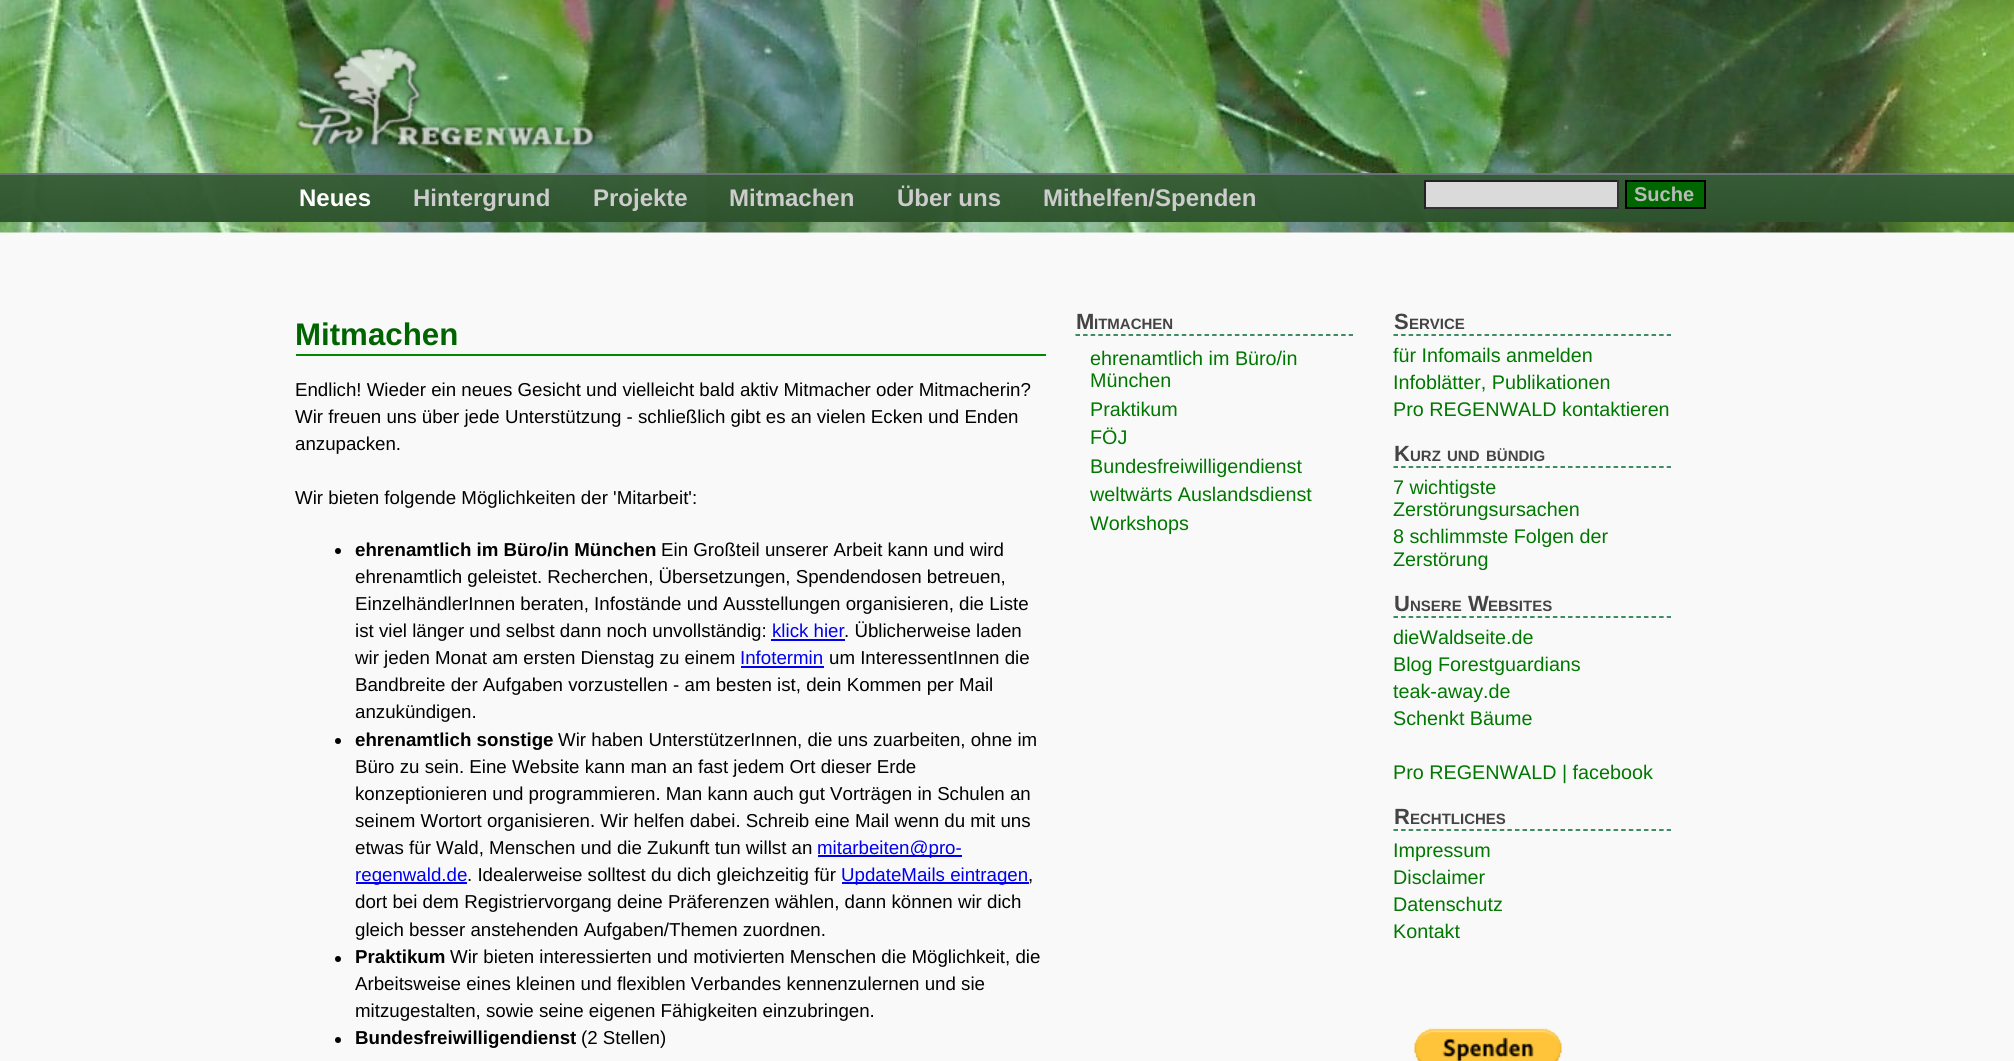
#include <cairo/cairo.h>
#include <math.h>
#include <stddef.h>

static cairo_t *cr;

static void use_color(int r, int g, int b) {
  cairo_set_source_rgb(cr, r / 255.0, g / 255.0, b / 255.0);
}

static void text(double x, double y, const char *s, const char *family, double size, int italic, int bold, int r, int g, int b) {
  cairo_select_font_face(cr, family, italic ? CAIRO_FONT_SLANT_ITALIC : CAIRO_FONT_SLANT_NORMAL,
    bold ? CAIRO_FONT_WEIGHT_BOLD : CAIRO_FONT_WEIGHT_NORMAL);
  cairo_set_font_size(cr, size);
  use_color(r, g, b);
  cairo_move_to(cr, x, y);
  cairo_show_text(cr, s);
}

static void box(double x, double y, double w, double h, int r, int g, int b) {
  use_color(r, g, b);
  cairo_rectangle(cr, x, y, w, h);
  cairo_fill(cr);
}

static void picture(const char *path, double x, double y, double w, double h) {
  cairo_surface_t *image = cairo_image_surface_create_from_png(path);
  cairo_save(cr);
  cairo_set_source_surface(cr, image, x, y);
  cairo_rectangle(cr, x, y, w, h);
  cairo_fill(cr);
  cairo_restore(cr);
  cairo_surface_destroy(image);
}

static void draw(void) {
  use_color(249, 249, 249);
  cairo_paint(cr);
  picture("img_01.png", 0, 0, 2014, 233);
  cairo_set_source_rgba(cr, 0.2, 0.4, 0.2, 0.8);
  cairo_rectangle(cr, 0, 173, 2014, 49);
  cairo_fill(cr);
  picture("img_02.png", 0, 174, 2014, 48);
  cairo_set_source_rgba(cr, 0.467, 0.467, 0.533, 0.8);
  cairo_rectangle(cr, 0, 173, 2014, 2);
  cairo_fill(cr);
  picture("img_03.png", 295, 45, 301, 104);
  box(1426, 182, 191, 25, 218, 218, 218);
  box(1424, 180, 195, 2, 34, 34, 34);
  box(1617, 180, 2, 29, 51, 51, 51);
  box(1424, 207, 195, 2, 51, 51, 51);
  box(1424, 180, 2, 29, 34, 34, 34);
  use_color(0, 102, 0);
  cairo_rectangle(cr, 1626, 181, 79, 27);
  cairo_fill_preserve(cr);
  use_color(0, 0, 0);
  cairo_stroke(cr);
  box(296, 354, 750, 2, 0, 136, 0);
  use_color(0, 0, 0);
  cairo_arc(cr, 338, 551, 3, 0, 2 * M_PI);
  cairo_fill(cr);
  box(771, 639, 74, 2, 0, 0, 238);
  box(741, 666, 83, 2, 0, 0, 238);
  use_color(0, 0, 0);
  cairo_arc(cr, 338, 741, 3, 0, 2 * M_PI);
  cairo_fill(cr);
  box(818, 855, 144, 2, 0, 0, 238);
  box(356, 882, 111, 2, 0, 0, 238);
  box(842, 882, 187, 2, 0, 0, 238);
  use_color(0, 0, 0);
  cairo_arc(cr, 338, 959, 3, 0, 2 * M_PI);
  cairo_fill(cr);
  cairo_arc(cr, 338, 1040, 3, 0, 2 * M_PI);
  cairo_fill(cr);
  cairo_new_path(cr);
  cairo_move_to(cr, 1075.5, 335);
  cairo_line_to(cr, 1353, 335);
  use_color(0, 102, 51);
  cairo_set_line_width(cr, 1.5);
  cairo_set_dash(cr, (double[]){4.5, 3.09}, 2, 0);
  cairo_stroke(cr);
  cairo_new_path(cr);
  cairo_move_to(cr, 1393.5, 335);
  cairo_line_to(cr, 1671, 335);
  cairo_stroke(cr);
  cairo_new_path(cr);
  cairo_move_to(cr, 1393.5, 467);
  cairo_line_to(cr, 1671, 467);
  cairo_stroke(cr);
  cairo_new_path(cr);
  cairo_move_to(cr, 1393.5, 617);
  cairo_line_to(cr, 1671, 617);
  cairo_stroke(cr);
  cairo_new_path(cr);
  cairo_move_to(cr, 1393.5, 830);
  cairo_line_to(cr, 1671, 830);
  cairo_stroke(cr);
  picture("img_04.png", 1414, 1028, 148, 33);
  text(299, 206, "Neues", "Liberation Sans", 24, 0, 1, 255, 255, 255);
  text(413, 206, "Hintergrund", "Liberation Sans", 24, 0, 1, 204, 204, 204);
  text(593, 206, "Projekte", "Liberation Sans", 24, 0, 1, 204, 204, 204);
  text(729, 206, "Mitmachen", "Liberation Sans", 24, 0, 1, 204, 204, 204);
  text(897, 206, "Über uns", "Liberation Sans", 24, 0, 1, 204, 204, 204);
  text(1043, 206, "Mithelfen/Spenden", "Liberation Sans", 24, 0, 1, 204, 204, 204);
  text(1634, 201, "Suche", "Liberation Sans", 20, 0, 1, 186, 186, 186);
  text(295, 345, "Mitmachen", "Liberation Sans", 31.25, 0, 1, 0, 101, 0);
  text(295, 396, "Endlich! Wieder ein neues Gesicht und vielleicht bald aktiv Mitmacher oder Mitmacherin?", "Liberation Sans", 18.7, 0, 0, 0, 0, 0);
  text(295, 423, "Wir freuen uns über jede Unterstützung - schließlich gibt es an vielen Ecken und Enden", "Liberation Sans", 18.7, 0, 0, 0, 0, 0);
  text(295, 450, "anzupacken.", "Liberation Sans", 18.7, 0, 0, 0, 0, 0);
  text(295, 504, "Wir bieten folgende Möglichkeiten der 'Mitarbeit':", "Liberation Sans", 18.7, 0, 0, 0, 0, 0);
  text(355, 556, "ehrenamtlich im Büro/in München", "Liberation Sans", 18.7, 0, 1, 0, 0, 0);
  text(661, 556, "Ein Großteil unserer Arbeit kann und wird", "Liberation Sans", 18.7, 0, 0, 0, 0, 0);
  text(355, 583, "ehrenamtlich geleistet. Recherchen, Übersetzungen, Spendendosen betreuen,", "Liberation Sans", 18.7, 0, 0, 0, 0, 0);
  text(355, 610, "EinzelhändlerInnen beraten, Infostände und Ausstellungen organisieren, die Liste", "Liberation Sans", 18.7, 0, 0, 0, 0, 0);
  text(355, 637, "ist viel länger und selbst dann noch unvollständig:", "Liberation Sans", 18.7, 0, 0, 0, 0, 0);
  text(772, 637, "klick hier", "Liberation Sans", 18.7, 0, 0, 0, 0, 238);
  text(844, 637, ". Üblicherweise laden", "Liberation Sans", 18.7, 0, 0, 0, 0, 0);
  text(355, 664, "wir jeden Monat am ersten Dienstag zu einem", "Liberation Sans", 18.7, 0, 0, 0, 0, 0);
  text(740, 664, "Infotermin", "Liberation Sans", 18.7, 0, 0, 0, 0, 238);
  text(829, 664, "um InteressentInnen die", "Liberation Sans", 18.7, 0, 0, 0, 0, 0);
  text(355, 691, "Bandbreite der Aufgaben vorzustellen - am besten ist, dein Kommen per Mail", "Liberation Sans", 18.7, 0, 0, 0, 0, 0);
  text(355, 718, "anzukündigen.", "Liberation Sans", 18.7, 0, 0, 0, 0, 0);
  text(355, 746, "ehrenamtlich sonstige", "Liberation Sans", 18.7, 0, 1, 0, 0, 0);
  text(558, 746, "Wir haben UnterstützerInnen, die uns zuarbeiten, ohne im", "Liberation Sans", 18.7, 0, 0, 0, 0, 0);
  text(355, 773, "Büro zu sein. Eine Website kann man an fast jedem Ort dieser Erde", "Liberation Sans", 18.7, 0, 0, 0, 0, 0);
  text(355, 800, "konzeptionieren und programmieren. Man kann auch gut Vorträgen in Schulen an", "Liberation Sans", 18.7, 0, 0, 0, 0, 0);
  text(355, 827, "seinem Wortort organisieren. Wir helfen dabei. Schreib eine Mail wenn du mit uns", "Liberation Sans", 18.7, 0, 0, 0, 0, 0);
  text(355, 854, "etwas für Wald, Menschen und die Zukunft tun willst an", "Liberation Sans", 18.7, 0, 0, 0, 0, 0);
  text(817, 854, "mitarbeiten@pro-", "Liberation Sans", 18.7, 0, 0, 0, 0, 238);
  text(355, 881, "regenwald.de", "Liberation Sans", 18.7, 0, 0, 0, 0, 238);
  text(467, 881, ". Idealerweise solltest du dich gleichzeitig für", "Liberation Sans", 18.7, 0, 0, 0, 0, 0);
  text(841, 881, "UpdateMails eintragen", "Liberation Sans", 18.7, 0, 0, 0, 0, 238);
  text(1028, 881, ",", "Liberation Sans", 18.7, 0, 0, 0, 0, 0);
  text(355, 908, "dort bei dem Registriervorgang deine Präferenzen wählen, dann können wir dich", "Liberation Sans", 18.7, 0, 0, 0, 0, 0);
  text(355, 936, "gleich besser anstehenden Aufgaben/Themen zuordnen.", "Liberation Sans", 18.7, 0, 0, 0, 0, 0);
  text(355, 963, "Praktikum", "Liberation Sans", 18.7, 0, 1, 0, 0, 0);
  text(450, 963, "Wir bieten interessierten und motivierten Menschen die Möglichkeit, die", "Liberation Sans", 18.7, 0, 0, 0, 0, 0);
  text(355, 990, "Arbeitsweise eines kleinen und flexiblen Verbandes kennenzulernen und sie", "Liberation Sans", 18.7, 0, 0, 0, 0, 0);
  text(355, 1017, "mitzugestalten, sowie seine eigenen Fähigkeiten einzubringen.", "Liberation Sans", 18.7, 0, 0, 0, 0, 0);
  text(355, 1044, "Bundesfreiwilligendienst", "Liberation Sans", 18.7, 0, 1, 0, 0, 0);
  text(581, 1044, "(2 Stellen)", "Liberation Sans", 18.7, 0, 0, 0, 0, 0);
  text(1076, 329, "M", "Liberation Sans", 22, 0, 1, 68, 68, 68);
  text(1094, 329, "ITMACHEN", "Liberation Sans", 15, 0, 1, 68, 68, 68);
  text(1090, 365, "ehrenamtlich im Büro/in", "Liberation Sans", 19.75, 0, 0, 0, 119, 0);
  text(1090, 387, "München", "Liberation Sans", 19.75, 0, 0, 0, 119, 0);
  text(1090, 416, "Praktikum", "Liberation Sans", 19.75, 0, 0, 0, 119, 0);
  text(1090, 444, "FÖJ", "Liberation Sans", 19.75, 0, 0, 0, 119, 0);
  text(1090, 473, "Bundesfreiwilligendienst", "Liberation Sans", 19.75, 0, 0, 0, 119, 0);
  text(1090, 501, "weltwärts Auslandsdienst", "Liberation Sans", 19.75, 0, 0, 0, 119, 0);
  text(1090, 530, "Workshops", "Liberation Sans", 19.75, 0, 0, 0, 119, 0);
  text(1394, 329, "S", "Liberation Sans", 22, 0, 1, 68, 68, 68);
  text(1409, 329, "ERVICE", "Liberation Sans", 15, 0, 1, 68, 68, 68);
  text(1393, 362, "für Infomails anmelden", "Liberation Sans", 19.75, 0, 0, 0, 119, 0);
  text(1393, 389, "Infoblätter, Publikationen", "Liberation Sans", 19.75, 0, 0, 0, 119, 0);
  text(1393, 416, "Pro REGENWALD kontaktieren", "Liberation Sans", 19.75, 0, 0, 0, 119, 0);
  text(1394, 461, "K", "Liberation Sans", 22, 0, 1, 68, 68, 68);
  text(1410, 461, "URZ", "Liberation Sans", 15, 0, 1, 68, 68, 68);
  text(1447, 461, "UND", "Liberation Sans", 15, 0, 1, 68, 68, 68);
  text(1486, 461, "BÜNDIG", "Liberation Sans", 15, 0, 1, 68, 68, 68);
  text(1393, 494, "7 wichtigste", "Liberation Sans", 19.75, 0, 0, 0, 119, 0);
  text(1393, 516, "Zerstörungsursachen", "Liberation Sans", 19.75, 0, 0, 0, 119, 0);
  text(1393, 543, "8 schlimmste Folgen der", "Liberation Sans", 19.75, 0, 0, 0, 119, 0);
  text(1393, 566, "Zerstörung", "Liberation Sans", 19.75, 0, 0, 0, 119, 0);
  text(1394, 611, "U", "Liberation Sans", 22, 0, 1, 68, 68, 68);
  text(1410, 611, "NSERE", "Liberation Sans", 15, 0, 1, 68, 68, 68);
  text(1468, 611, "W", "Liberation Sans", 22, 0, 1, 68, 68, 68);
  text(1488, 611, "EBSITES", "Liberation Sans", 15, 0, 1, 68, 68, 68);
  text(1393, 644, "dieWaldseite.de", "Liberation Sans", 19.75, 0, 0, 0, 119, 0);
  text(1393, 671, "Blog Forestguardians", "Liberation Sans", 19.75, 0, 0, 0, 119, 0);
  text(1393, 698, "teak-away.de", "Liberation Sans", 19.75, 0, 0, 0, 119, 0);
  text(1393, 725, "Schenkt Bäume", "Liberation Sans", 19.75, 0, 0, 0, 119, 0);
  text(1393, 779, "Pro REGENWALD | facebook", "Liberation Sans", 19.75, 0, 0, 0, 119, 0);
  text(1394, 824, "R", "Liberation Sans", 22, 0, 1, 68, 68, 68);
  text(1410, 824, "ECHTLICHES", "Liberation Sans", 15, 0, 1, 68, 68, 68);
  text(1393, 857, "Impressum", "Liberation Sans", 19.75, 0, 0, 0, 119, 0);
  text(1393, 884, "Disclaimer", "Liberation Sans", 19.75, 0, 0, 0, 119, 0);
  text(1393, 911, "Datenschutz", "Liberation Sans", 19.75, 0, 0, 0, 119, 0);
  text(1393, 938, "Kontakt", "Liberation Sans", 19.75, 0, 0, 0, 119, 0);
}

int main(void) {
  cairo_surface_t *surface = cairo_image_surface_create(CAIRO_FORMAT_RGB24, 2014, 1061);
  cr = cairo_create(surface);
  cairo_font_options_t *options = cairo_font_options_create();
  cairo_font_options_set_hint_metrics(options, CAIRO_HINT_METRICS_OFF);
  cairo_font_options_set_hint_style(options, CAIRO_HINT_STYLE_NONE);
  cairo_set_font_options(cr, options);
  cairo_set_miter_limit(cr, 4);
  draw();
  cairo_surface_write_to_png(surface, "out.png");
  cairo_font_options_destroy(options);
  cairo_destroy(cr);
  cairo_surface_destroy(surface);
  return 0;
}
